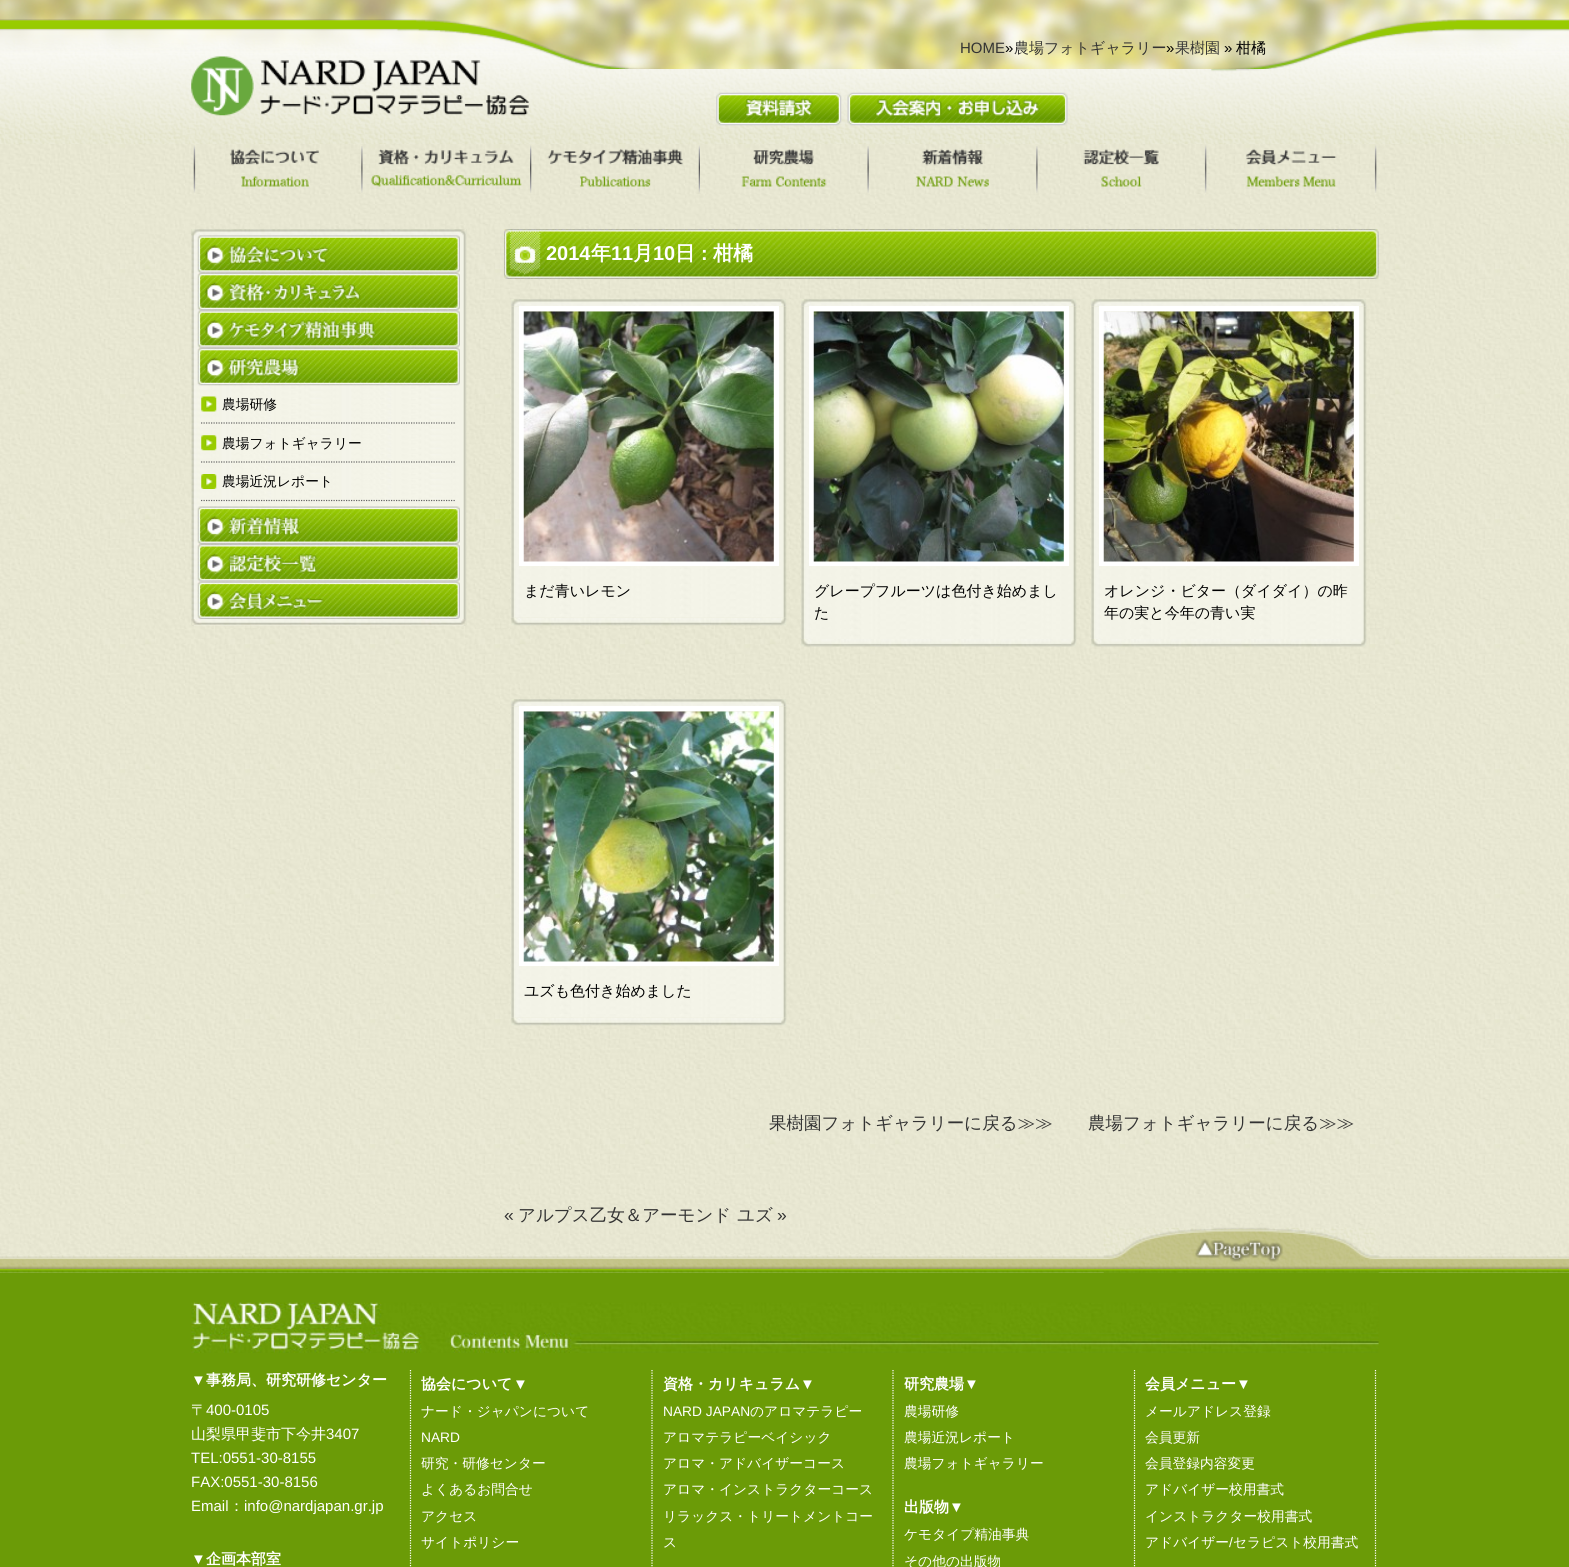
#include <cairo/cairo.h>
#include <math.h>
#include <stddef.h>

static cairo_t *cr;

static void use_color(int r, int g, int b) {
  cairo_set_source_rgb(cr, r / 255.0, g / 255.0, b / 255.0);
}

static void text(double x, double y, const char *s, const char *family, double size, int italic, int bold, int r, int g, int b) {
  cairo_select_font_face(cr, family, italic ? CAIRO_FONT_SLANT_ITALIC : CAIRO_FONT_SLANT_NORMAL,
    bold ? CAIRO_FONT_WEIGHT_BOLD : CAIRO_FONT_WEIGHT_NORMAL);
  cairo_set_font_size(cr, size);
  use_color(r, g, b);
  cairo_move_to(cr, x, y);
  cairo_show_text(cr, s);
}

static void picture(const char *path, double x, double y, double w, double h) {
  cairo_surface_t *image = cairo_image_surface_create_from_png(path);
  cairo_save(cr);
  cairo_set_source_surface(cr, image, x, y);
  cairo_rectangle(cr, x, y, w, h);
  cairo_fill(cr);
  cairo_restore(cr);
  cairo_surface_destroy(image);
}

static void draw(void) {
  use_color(107, 155, 7);
  cairo_paint(cr);
  picture("img_01.png", 0, 0, 1569, 69);
  picture("img_02.png", 0, 19, 1569, 50);
  picture("img_03.png", 0, 69, 1569, 75);
  picture("img_04.png", 191, 56, 338, 60);
  picture("img_05.png", 716, 92, 126, 34);
  picture("img_06.png", 847, 92, 221, 34);
  picture("img_07.png", 0, 144, 1569, 1129);
  picture("img_08.png", 193, 145, 126, 48);
  picture("img_09.png", 361, 146, 161, 47);
  picture("img_10.png", 530, 145, 170, 48);
  picture("img_11.png", 741, 146, 128, 47);
  picture("img_12.png", 916, 146, 122, 47);
  picture("img_13.png", 1083, 145, 124, 48);
  picture("img_14.png", 1246, 145, 131, 48);
  picture("img_15.png", 191, 229, 276, 397);
  picture("img_16.png", 191, 229, 275, 7);
  picture("img_17.png", 197, 235, 263, 38);
  picture("img_18.png", 197, 272, 263, 39);
  picture("img_19.png", 197, 310, 263, 38);
  picture("img_20.png", 197, 347, 263, 39);
  picture("img_21.png", 201, 396, 16, 16);
  cairo_new_path(cr);
  cairo_move_to(cr, 201, 423);
  cairo_line_to(cr, 456, 423);
  use_color(102, 102, 102);
  cairo_set_line_width(cr, 1.2);
  cairo_set_dash(cr, (double[]){1.25, 1.25}, 2, 0);
  cairo_stroke(cr);
  picture("img_22.png", 201, 435, 16, 16);
  cairo_new_path(cr);
  cairo_move_to(cr, 201, 462);
  cairo_line_to(cr, 456, 462);
  cairo_stroke(cr);
  picture("img_23.png", 201, 474, 16, 15);
  cairo_new_path(cr);
  cairo_move_to(cr, 201, 500.5);
  cairo_line_to(cr, 456, 500.5);
  cairo_stroke(cr);
  picture("img_24.png", 197, 506, 263, 38);
  picture("img_25.png", 197, 544, 263, 38);
  picture("img_26.png", 197, 581, 263, 38);
  picture("img_27.png", 191, 619, 275, 6);
  picture("img_28.png", 504, 229, 875, 50);
  picture("img_29.png", 511, 299, 276, 8);
  picture("img_32.png", 511, 617, 276, 9);
  picture("img_30.png", 511, 306, 276, 312);
  cairo_rectangle(cr, 521.5, 308.5, 255, 255);
  use_color(255, 255, 255);
  cairo_set_line_width(cr, 5);
  cairo_set_dash(cr, NULL, 0, 0);
  cairo_stroke(cr);
  picture("img_31.png", 523, 311, 251, 251);
  picture("img_33.png", 801, 299, 276, 8);
  picture("img_34.png", 801, 306, 276, 333);
  cairo_rectangle(cr, 811.5, 308.5, 255, 255);
  cairo_stroke(cr);
  picture("img_35.png", 813, 311, 251, 251);
  picture("img_36.png", 801, 639, 276, 8);
  picture("img_37.png", 1091, 299, 276, 8);
  picture("img_38.png", 1091, 306, 276, 333);
  cairo_rectangle(cr, 1101.5, 308.5, 255, 255);
  cairo_stroke(cr);
  picture("img_39.png", 1103, 311, 251, 251);
  picture("img_40.png", 1091, 639, 276, 8);
  picture("img_41.png", 511, 699, 276, 8);
  picture("img_44.png", 511, 1017, 276, 9);
  picture("img_42.png", 511, 706, 276, 312);
  cairo_rectangle(cr, 521.5, 708.5, 255, 255);
  cairo_stroke(cr);
  picture("img_43.png", 523, 711, 251, 251);
  picture("img_45.png", 0, 1255, 1569, 18);
  picture("img_46.png", 1103, 1227, 276, 46);
  picture("img_47.png", 191, 1302, 1188, 51);
  cairo_new_path(cr);
  cairo_move_to(cr, 410.5, 1370);
  cairo_line_to(cr, 410.5, 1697.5);
  cairo_set_line_width(cr, 1.2);
  cairo_set_dash(cr, (double[]){1.25, 1.25}, 2, 0);
  cairo_stroke(cr);
  cairo_new_path(cr);
  cairo_move_to(cr, 652, 1370);
  cairo_line_to(cr, 652, 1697.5);
  cairo_stroke(cr);
  cairo_new_path(cr);
  cairo_move_to(cr, 893, 1370);
  cairo_line_to(cr, 893, 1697.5);
  cairo_stroke(cr);
  cairo_new_path(cr);
  cairo_move_to(cr, 1375.5, 1370);
  cairo_line_to(cr, 1375.5, 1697.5);
  cairo_stroke(cr);
  cairo_new_path(cr);
  cairo_move_to(cr, 1134.5, 1370);
  cairo_line_to(cr, 1134.5, 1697.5);
  cairo_stroke(cr);
  text(960, 53, "HOME", "Liberation Sans", 15, 0, 0, 51, 51, 51);
  text(1005, 53, "»", "Liberation Sans", 15, 0, 0, 0, 0, 0);
  text(1014, 53, "農場フォトギャラリー", "WenQuanYi Zen Hei Medium", 15, 0, 0, 51, 51, 51);
  text(1166, 53, "»", "Liberation Sans", 15, 0, 0, 0, 0, 0);
  text(1175, 53, "果樹園", "WenQuanYi Zen Hei Medium", 15, 0, 0, 51, 51, 51);
  text(1224, 53, "»", "Liberation Sans", 15, 0, 0, 0, 0, 0);
  text(1236, 53, "柑橘", "WenQuanYi Zen Hei Medium", 15, 0, 0, 0, 0, 0);
  text(222, 409, "農場研修", "WenQuanYi Zen Hei Medium", 13.75, 0, 0, 0, 0, 0);
  text(222, 448, "農場フォトギャラリー", "WenQuanYi Zen Hei Medium", 13.75, 0, 0, 0, 0, 0);
  text(222, 486, "農場近況レポート", "WenQuanYi Zen Hei Medium", 13.75, 0, 0, 0, 0, 0);
  text(546, 260, "2014", "Liberation Sans", 20, 0, 1, 255, 255, 255);
  text(591, 260, "年", "WenQuanYi Zen Hei", 20, 0, 1, 255, 255, 255);
  text(611, 260, "11", "Liberation Sans", 20, 0, 1, 255, 255, 255);
  text(633, 260, "月", "WenQuanYi Zen Hei", 20, 0, 1, 255, 255, 255);
  text(653, 260, "10", "Liberation Sans", 20, 0, 1, 255, 255, 255);
  text(675, 260, "日", "WenQuanYi Zen Hei", 20, 0, 1, 255, 255, 255);
  text(701, 260, ":", "Liberation Sans", 20, 0, 1, 255, 255, 255);
  text(713, 260, "柑橘", "WenQuanYi Zen Hei", 20, 0, 1, 255, 255, 255);
  text(524, 596, "まだ青いレモン", "WenQuanYi Zen Hei Medium", 15, 0, 0, 0, 0, 0);
  text(814, 596, "グレープフルーツは色付き始めまし", "WenQuanYi Zen Hei Medium", 15, 0, 0, 0, 0, 0);
  text(814, 618, "た", "WenQuanYi Zen Hei Medium", 15, 0, 0, 0, 0, 0);
  text(1104, 596, "オレンジ・ビター（ダイダイ）の昨", "WenQuanYi Zen Hei Medium", 15, 0, 0, 0, 0, 0);
  text(1104, 618, "年の実と今年の青い実", "WenQuanYi Zen Hei Medium", 15, 0, 0, 0, 0, 0);
  text(524, 996, "ユズも色付き始めました", "WenQuanYi Zen Hei Medium", 15, 0, 0, 0, 0, 0);
  text(769, 1129, "果樹園フォトギャラリーに戻る≫≫", "WenQuanYi Zen Hei Medium", 17.5, 0, 0, 51, 51, 51);
  text(1088, 1129, "農場フォトギャラリーに戻る≫≫", "WenQuanYi Zen Hei Medium", 17.5, 0, 0, 51, 51, 51);
  text(504, 1221, "«", "Liberation Sans", 17.5, 0, 0, 51, 51, 51);
  text(518, 1221, "アルプス乙女＆アーモンド", "WenQuanYi Zen Hei Medium", 17.5, 0, 0, 51, 51, 51);
  text(737, 1221, "ユズ", "WenQuanYi Zen Hei Medium", 17.5, 0, 0, 51, 51, 51);
  text(777, 1221, "»", "Liberation Sans", 17.5, 0, 0, 51, 51, 51);
  text(191, 1385, "▼", "Liberation Sans", 15, 0, 1, 255, 255, 255);
  text(206, 1385, "事務局、研究研修センター", "WenQuanYi Zen Hei", 15, 0, 1, 255, 255, 255);
  text(191, 1415, "〒", "WenQuanYi Zen Hei Medium", 15, 0, 0, 255, 255, 255);
  text(206, 1415, "400-0105", "Liberation Sans", 15, 0, 0, 255, 255, 255);
  text(191, 1439, "山梨県甲斐市下今井", "WenQuanYi Zen Hei Medium", 15, 0, 0, 255, 255, 255);
  text(326, 1439, "3407", "Liberation Sans", 15, 0, 0, 255, 255, 255);
  text(191, 1463, "TEL:0551-30-8155", "Liberation Sans", 15, 0, 0, 255, 255, 255);
  text(191, 1487, "FAX:0551-30-8156", "Liberation Sans", 15, 0, 0, 255, 255, 255);
  text(191, 1511, "Email", "Liberation Sans", 15, 0, 0, 255, 255, 255);
  text(229, 1511, "：", "WenQuanYi Zen Hei Medium", 15, 0, 0, 255, 255, 255);
  text(244, 1511, "info@nardjapan.gr.jp", "Liberation Sans", 15, 0, 0, 255, 255, 255);
  text(191, 1564, "▼", "Liberation Sans", 15, 0, 1, 255, 255, 255);
  text(206, 1564, "企画本部室", "WenQuanYi Zen Hei", 15, 0, 1, 255, 255, 255);
  text(421, 1389, "協会について", "WenQuanYi Zen Hei", 15, 0, 1, 255, 255, 255);
  text(513, 1389, "▼", "Liberation Sans", 15, 0, 1, 255, 255, 255);
  text(421, 1416, "ナード・ジャパンについて", "WenQuanYi Zen Hei Medium", 13.75, 0, 0, 255, 255, 255);
  text(421, 1442, "NARD", "Liberation Sans", 13.75, 0, 0, 255, 255, 255);
  text(421, 1468, "研究・研修センター", "WenQuanYi Zen Hei Medium", 13.75, 0, 0, 255, 255, 255);
  text(421, 1494, "よくあるお問合せ", "WenQuanYi Zen Hei Medium", 13.75, 0, 0, 255, 255, 255);
  text(421, 1521, "アクセス", "WenQuanYi Zen Hei Medium", 13.75, 0, 0, 255, 255, 255);
  text(421, 1547, "サイトポリシー", "WenQuanYi Zen Hei Medium", 13.75, 0, 0, 255, 255, 255);
  text(663, 1389, "資格・カリキュラム", "WenQuanYi Zen Hei", 15, 0, 1, 255, 255, 255);
  text(800, 1389, "▼", "Liberation Sans", 15, 0, 1, 255, 255, 255);
  text(663, 1416, "NARD JAPAN", "Liberation Sans", 13.75, 0, 0, 255, 255, 255);
  text(750, 1416, "のアロマテラピー", "WenQuanYi Zen Hei Medium", 13.75, 0, 0, 255, 255, 255);
  text(663, 1442, "アロマテラピーベイシック", "WenQuanYi Zen Hei Medium", 13.75, 0, 0, 255, 255, 255);
  text(663, 1468, "アロマ・アドバイザーコース", "WenQuanYi Zen Hei Medium", 13.75, 0, 0, 255, 255, 255);
  text(663, 1494, "アロマ・インストラクターコース", "WenQuanYi Zen Hei Medium", 13.75, 0, 0, 255, 255, 255);
  text(663, 1521, "リラックス・トリートメントコー", "WenQuanYi Zen Hei Medium", 13.75, 0, 0, 255, 255, 255);
  text(663, 1547, "ス", "WenQuanYi Zen Hei Medium", 13.75, 0, 0, 255, 255, 255);
  text(904, 1389, "研究農場", "WenQuanYi Zen Hei", 15, 0, 1, 255, 255, 255);
  text(964, 1389, "▼", "Liberation Sans", 15, 0, 1, 255, 255, 255);
  text(904, 1416, "農場研修", "WenQuanYi Zen Hei Medium", 13.75, 0, 0, 255, 255, 255);
  text(904, 1442, "農場近況レポート", "WenQuanYi Zen Hei Medium", 13.75, 0, 0, 255, 255, 255);
  text(904, 1468, "農場フォトギャラリー", "WenQuanYi Zen Hei Medium", 13.75, 0, 0, 255, 255, 255);
  text(904, 1512, "出版物", "WenQuanYi Zen Hei", 15, 0, 1, 255, 255, 255);
  text(949, 1512, "▼", "Liberation Sans", 15, 0, 1, 255, 255, 255);
  text(904, 1539, "ケモタイプ精油事典", "WenQuanYi Zen Hei Medium", 13.75, 0, 0, 255, 255, 255);
  text(904, 1566, "その他の出版物", "WenQuanYi Zen Hei Medium", 13.75, 0, 0, 255, 255, 255);
  text(1145, 1389, "会員メニュー", "WenQuanYi Zen Hei", 15, 0, 1, 255, 255, 255);
  text(1236, 1389, "▼", "Liberation Sans", 15, 0, 1, 255, 255, 255);
  text(1145, 1416, "メールアドレス登録", "WenQuanYi Zen Hei Medium", 13.75, 0, 0, 255, 255, 255);
  text(1145, 1442, "会員更新", "WenQuanYi Zen Hei Medium", 13.75, 0, 0, 255, 255, 255);
  text(1145, 1468, "会員登録内容変更", "WenQuanYi Zen Hei Medium", 13.75, 0, 0, 255, 255, 255);
  text(1145, 1494, "アドバイザー校用書式", "WenQuanYi Zen Hei Medium", 13.75, 0, 0, 255, 255, 255);
  text(1145, 1521, "インストラクター校用書式", "WenQuanYi Zen Hei Medium", 13.75, 0, 0, 255, 255, 255);
  text(1145, 1547, "アドバイザー", "WenQuanYi Zen Hei Medium", 13.75, 0, 0, 255, 255, 255);
  text(1229, 1547, "/", "Liberation Sans", 13.75, 0, 0, 255, 255, 255);
  text(1233, 1547, "セラピスト校用書式", "WenQuanYi Zen Hei Medium", 13.75, 0, 0, 255, 255, 255);
}

int main(void) {
  cairo_surface_t *surface = cairo_image_surface_create(CAIRO_FORMAT_RGB24, 1569, 1567);
  cr = cairo_create(surface);
  cairo_font_options_t *options = cairo_font_options_create();
  cairo_font_options_set_hint_metrics(options, CAIRO_HINT_METRICS_OFF);
  cairo_font_options_set_hint_style(options, CAIRO_HINT_STYLE_NONE);
  cairo_set_font_options(cr, options);
  cairo_set_miter_limit(cr, 4);
  draw();
  cairo_surface_write_to_png(surface, "out.png");
  cairo_font_options_destroy(options);
  cairo_destroy(cr);
  cairo_surface_destroy(surface);
  return 0;
}
